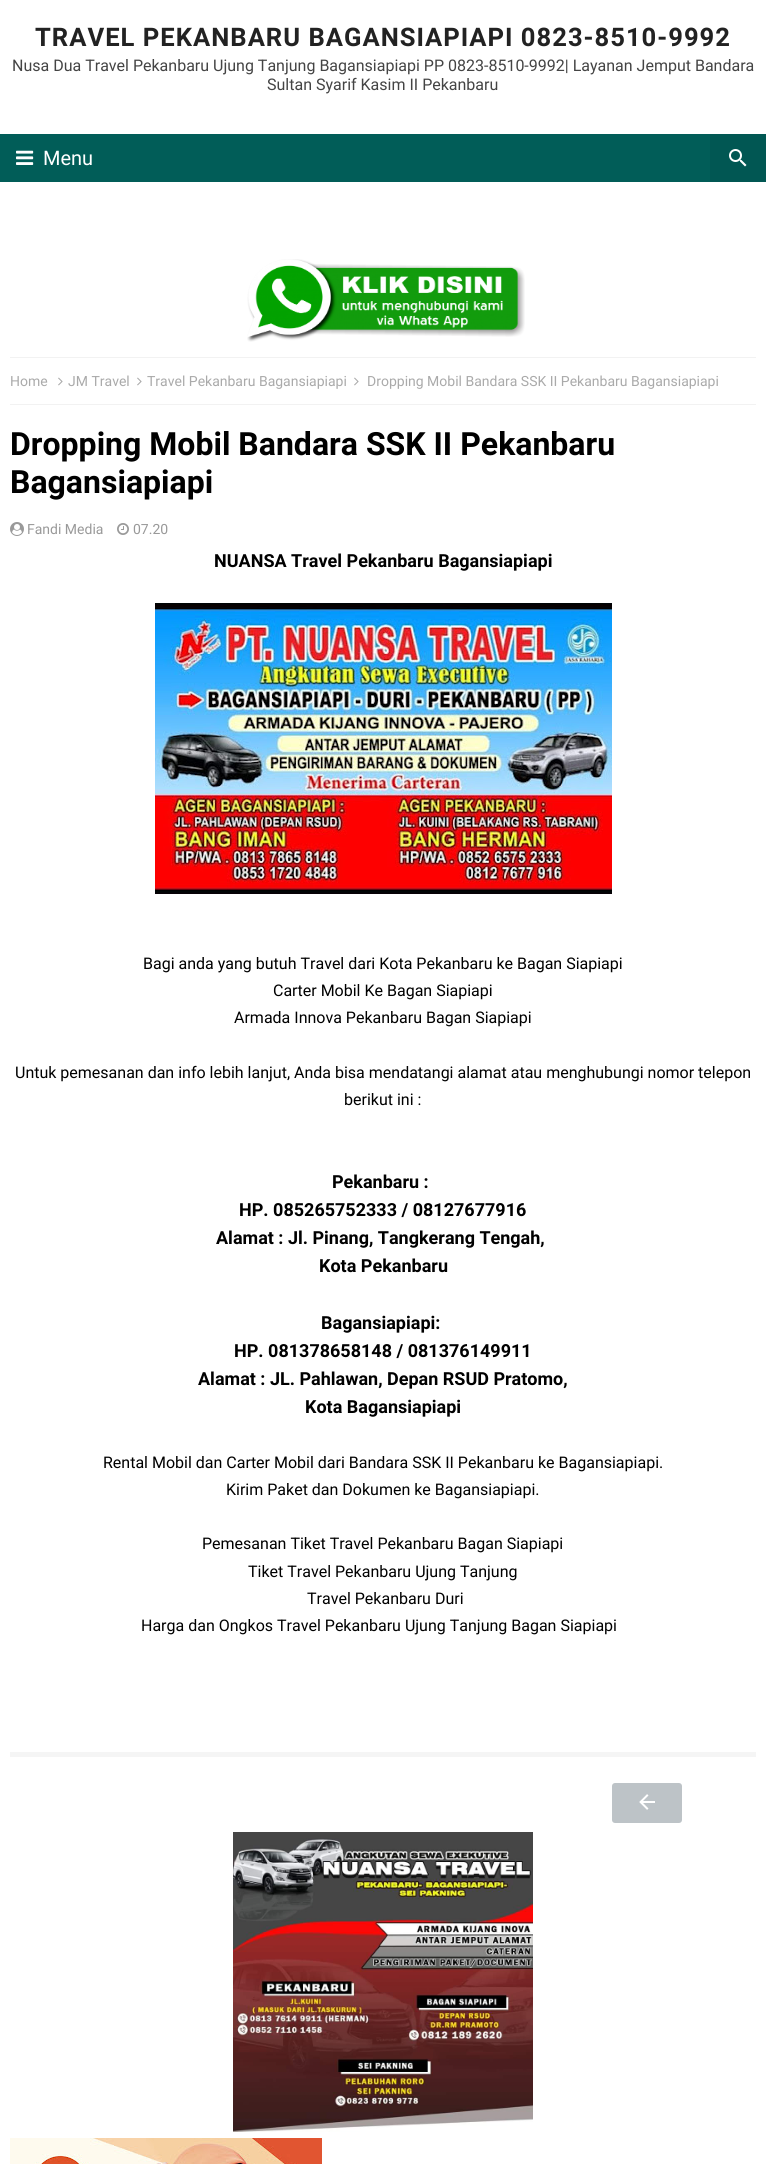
#include <cairo/cairo.h>
#include <math.h>
#include <stddef.h>

static cairo_t *cr;

static void use_color(int r, int g, int b) {
  cairo_set_source_rgb(cr, r / 255.0, g / 255.0, b / 255.0);
}

static void text(double x, double y, const char *s, const char *family, double size, int italic, int bold, int r, int g, int b) {
  cairo_select_font_face(cr, family, italic ? CAIRO_FONT_SLANT_ITALIC : CAIRO_FONT_SLANT_NORMAL,
    bold ? CAIRO_FONT_WEIGHT_BOLD : CAIRO_FONT_WEIGHT_NORMAL);
  cairo_set_font_size(cr, size);
  use_color(r, g, b);
  cairo_move_to(cr, x, y);
  cairo_show_text(cr, s);
}

static void spaced_text(double x, double y, const char *s, double letter, double word) {
  cairo_move_to(cr, x, y);
  while (*s) {
    char ch[5] = {0};
    int n = 0;
    do ch[n++] = *s++; while ((*s & 0xC0) == 0x80);
    cairo_show_text(cr, ch);
    cairo_rel_move_to(cr, letter + word * (*ch == ' '), 0);
  }
}

static void box(double x, double y, double w, double h, int r, int g, int b) {
  use_color(r, g, b);
  cairo_rectangle(cr, x, y, w, h);
  cairo_fill(cr);
}

static void round_rect(double x, double y, double w, double h, double r) {
  cairo_new_sub_path(cr);
  cairo_arc(cr, x + w - r, y + h - r, r, 0, M_PI / 2);
  cairo_arc(cr, x + r, y + h - r, r, M_PI / 2, M_PI);
  cairo_arc(cr, x + r, y + r, r, M_PI, 1.5 * M_PI);
  cairo_arc(cr, x + w - r, y + r, r, 1.5 * M_PI, 2 * M_PI);
  cairo_close_path(cr);
}

static void picture(const char *path, double x, double y, double w, double h) {
  cairo_surface_t *image = cairo_image_surface_create_from_png(path);
  cairo_save(cr);
  cairo_set_source_surface(cr, image, x, y);
  cairo_rectangle(cr, x, y, w, h);
  cairo_fill(cr);
  cairo_restore(cr);
  cairo_surface_destroy(image);
}

static void draw(void) {
  use_color(255, 255, 255);
  cairo_paint(cr);
  box(0, 134, 710, 48, 1, 93, 88);
  picture("img_01.png", 16, 150, 18, 15);
  box(710, 134, 56, 48, 1, 87, 83);
  picture("img_02.png", 729, 149, 18, 18);
  picture("img_03.png", 247, 259, 278, 83);
  box(10, 357, 746, 1, 242, 242, 242);
  box(10, 404, 746, 1, 242, 242, 242);
  picture("img_04.png", 58, 377, 5, 9);
  picture("img_04.png", 137, 377, 5, 9);
  picture("img_04.png", 354, 377, 5, 9);
  picture("img_05.png", 10, 522, 14, 14);
  picture("img_06.png", 117, 523, 12, 12);
  picture("img_07.png", 155, 603, 457, 291);
  box(10, 1752, 746, 5, 245, 245, 245);
  use_color(189, 195, 199);
  round_rect(612, 1783, 70, 40, 3);
  cairo_fill(cr);
  picture("img_08.png", 639, 1794, 16, 16);
  picture("img_09.png", 233, 1832, 300, 300);
  picture("img_10.png", 10, 2138, 312, 26);
  cairo_select_font_face(cr, "Roboto", CAIRO_FONT_SLANT_NORMAL, CAIRO_FONT_WEIGHT_BOLD);
  cairo_set_font_size(cr, 25.6);
  use_color(34, 34, 34);
  spaced_text(35, 46, "TRAVEL PEKANBARU BAGANSIAPIAPI 0823-8510-9992", 1, 0);
  text(12, 71, "Nusa Dua Travel Pekanbaru Ujung Tanjung Bagansiapiapi PP 0823-8510-9992| Layanan Jemput Bandara", "Roboto", 16, 0, 0, 68, 68, 68);
  text(267, 90, "Sultan Syarif Kasim II Pekanbaru", "Roboto", 16, 0, 0, 68, 68, 68);
  text(43, 165, "Menu", "Roboto", 20, 0, 0, 255, 255, 255);
  text(10, 386, "Home", "Roboto", 14, 0, 0, 170, 170, 170);
  text(68, 386, "JM Travel", "Roboto", 14, 0, 0, 170, 170, 170);
  text(147, 386, "Travel Pekanbaru Bagansiapiapi", "Roboto", 14, 0, 0, 170, 170, 170);
  text(367, 386, "Dropping Mobil Bandara SSK II Pekanbaru Bagansiapiapi", "Roboto", 14, 0, 0, 170, 170, 170);
  text(10, 455, "Dropping Mobil Bandara SSK II Pekanbaru", "Roboto", 32, 0, 1, 0, 0, 0);
  text(10, 493, "Bagansiapiapi", "Roboto", 32, 0, 1, 0, 0, 0);
  text(27, 534, "Fandi Media", "Roboto", 14, 0, 0, 153, 153, 153);
  text(133, 534, "07.20", "Roboto", 14, 0, 0, 153, 153, 153);
  text(214, 567, "NUANSA Travel Pekanbaru Bagansiapiapi", "Roboto", 18, 0, 1, 0, 0, 0);
  text(143, 969, "Bagi anda yang butuh Travel dari Kota Pekanbaru ke Bagan Siapiapi", "Roboto", 16, 0, 0, 0, 0, 0);
  text(273, 996, "Carter Mobil Ke Bagan Siapiapi", "Roboto", 16, 0, 0, 0, 0, 0);
  text(234, 1023, "Armada Innova Pekanbaru Bagan Siapiapi", "Roboto", 16, 0, 0, 0, 0, 0);
  text(15, 1078, "Untuk pemesanan dan info lebih lanjut, Anda bisa mendatangi alamat atau menghubungi nomor telepon", "Roboto", 16, 0, 0, 0, 0, 0);
  text(344, 1105, "berikut ini :", "Roboto", 16, 0, 0, 0, 0, 0);
  text(332, 1188, "Pekanbaru :", "Roboto", 18, 0, 1, 0, 0, 0);
  text(239, 1216, "HP. 085265752333 / 08127677916", "Roboto", 18, 0, 1, 0, 0, 0);
  text(216, 1244, "Alamat : Jl. Pinang, Tangkerang Tengah,", "Roboto", 18, 0, 1, 0, 0, 0);
  text(319, 1272, "Kota Pekanbaru", "Roboto", 18, 0, 1, 0, 0, 0);
  text(321, 1329, "Bagansiapiapi:", "Roboto", 18, 0, 1, 0, 0, 0);
  text(234, 1357, "HP. 081378658148 / 081376149911", "Roboto", 18, 0, 1, 0, 0, 0);
  text(198, 1385, "Alamat : JL. Pahlawan, Depan RSUD Pratomo,", "Roboto", 18, 0, 1, 0, 0, 0);
  text(305, 1413, "Kota Bagansiapiapi", "Roboto", 18, 0, 1, 0, 0, 0);
  text(103, 1468, "Rental Mobil dan Carter Mobil dari Bandara SSK II Pekanbaru ke Bagansiapiapi.", "Roboto", 16, 0, 0, 0, 0, 0);
  text(226, 1495, "Kirim Paket dan Dokumen ke Bagansiapiapi.", "Roboto", 16, 0, 0, 0, 0, 0);
  text(202, 1549, "Pemesanan Tiket Travel Pekanbaru Bagan Siapiapi", "Roboto", 16, 0, 0, 0, 0, 0);
  text(248, 1577, "Tiket Travel Pekanbaru Ujung Tanjung", "Roboto", 16, 0, 0, 0, 0, 0);
  text(307, 1604, "Travel Pekanbaru Duri", "Roboto", 16, 0, 0, 0, 0, 0);
  text(141, 1631, "Harga dan Ongkos Travel Pekanbaru Ujung Tanjung Bagan Siapiapi", "Roboto", 16, 0, 0, 0, 0, 0);
}

int main(void) {
  cairo_surface_t *surface = cairo_image_surface_create(CAIRO_FORMAT_RGB24, 766, 2164);
  cr = cairo_create(surface);
  cairo_font_options_t *options = cairo_font_options_create();
  cairo_font_options_set_hint_metrics(options, CAIRO_HINT_METRICS_OFF);
  cairo_font_options_set_hint_style(options, CAIRO_HINT_STYLE_NONE);
  cairo_set_font_options(cr, options);
  cairo_set_miter_limit(cr, 4);
  draw();
  cairo_surface_write_to_png(surface, "out.png");
  cairo_font_options_destroy(options);
  cairo_destroy(cr);
  cairo_surface_destroy(surface);
  return 0;
}
